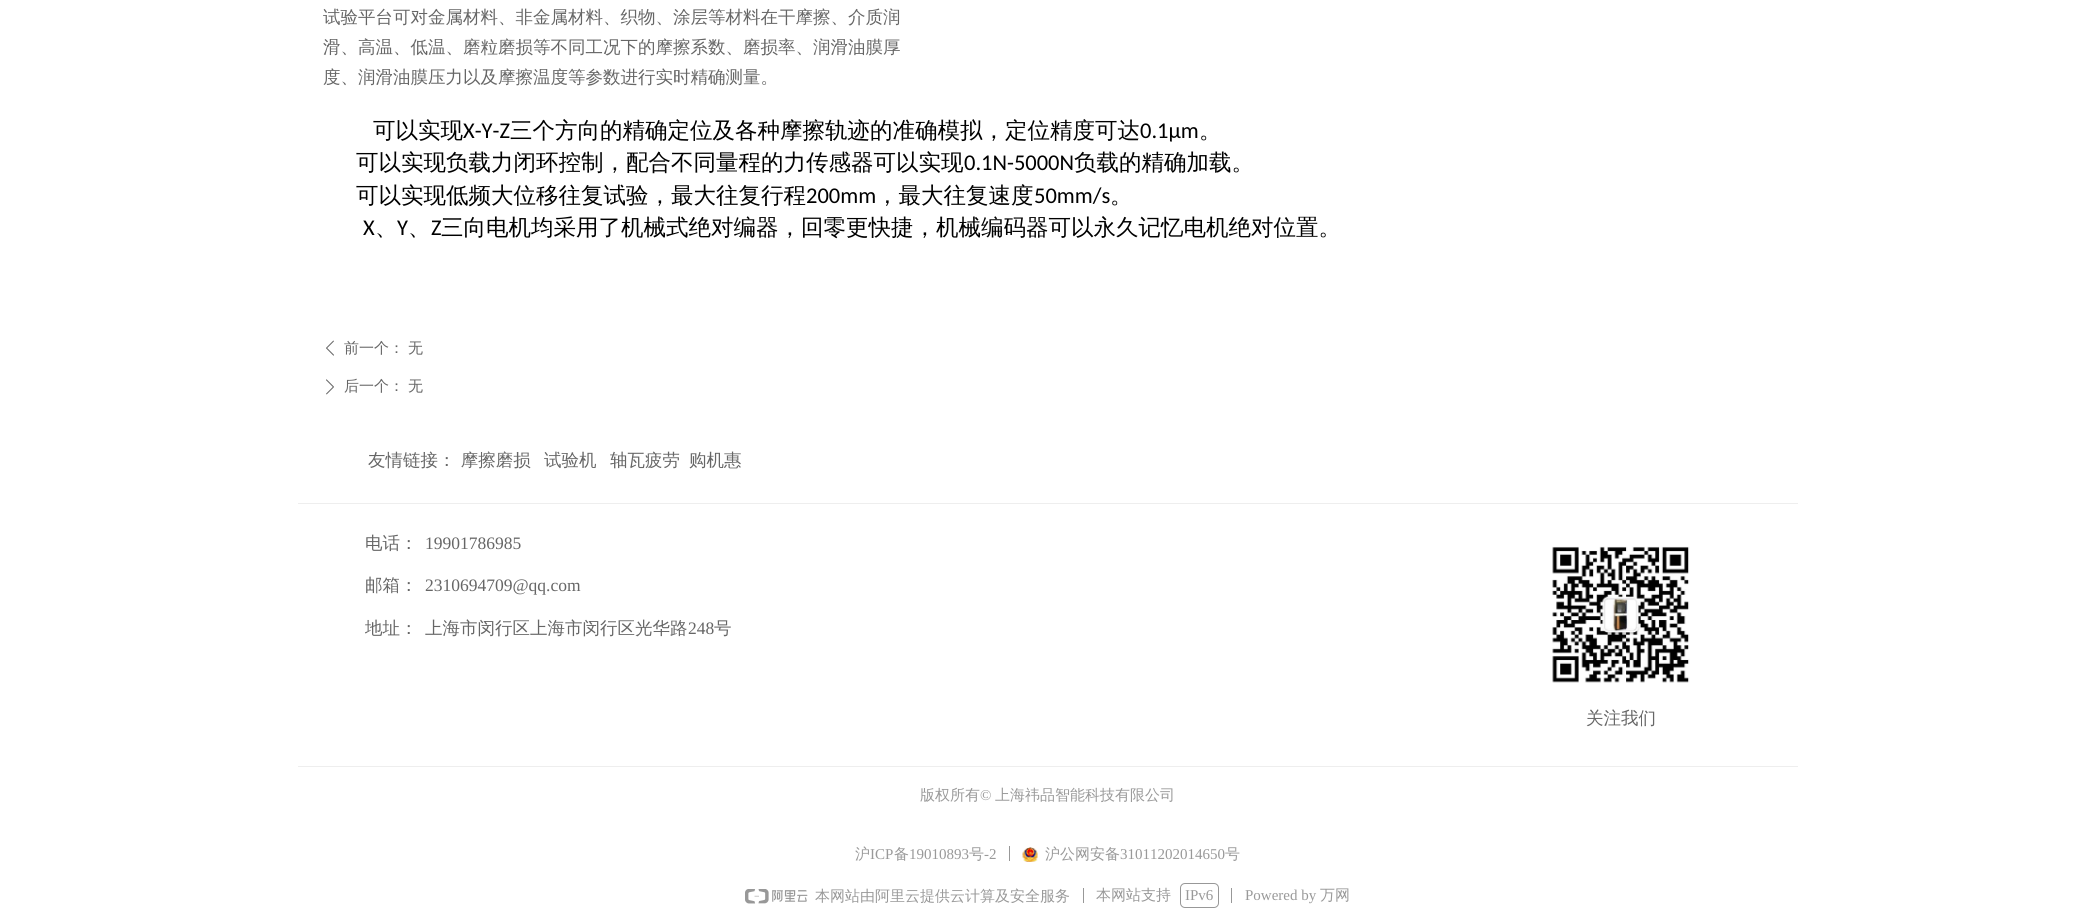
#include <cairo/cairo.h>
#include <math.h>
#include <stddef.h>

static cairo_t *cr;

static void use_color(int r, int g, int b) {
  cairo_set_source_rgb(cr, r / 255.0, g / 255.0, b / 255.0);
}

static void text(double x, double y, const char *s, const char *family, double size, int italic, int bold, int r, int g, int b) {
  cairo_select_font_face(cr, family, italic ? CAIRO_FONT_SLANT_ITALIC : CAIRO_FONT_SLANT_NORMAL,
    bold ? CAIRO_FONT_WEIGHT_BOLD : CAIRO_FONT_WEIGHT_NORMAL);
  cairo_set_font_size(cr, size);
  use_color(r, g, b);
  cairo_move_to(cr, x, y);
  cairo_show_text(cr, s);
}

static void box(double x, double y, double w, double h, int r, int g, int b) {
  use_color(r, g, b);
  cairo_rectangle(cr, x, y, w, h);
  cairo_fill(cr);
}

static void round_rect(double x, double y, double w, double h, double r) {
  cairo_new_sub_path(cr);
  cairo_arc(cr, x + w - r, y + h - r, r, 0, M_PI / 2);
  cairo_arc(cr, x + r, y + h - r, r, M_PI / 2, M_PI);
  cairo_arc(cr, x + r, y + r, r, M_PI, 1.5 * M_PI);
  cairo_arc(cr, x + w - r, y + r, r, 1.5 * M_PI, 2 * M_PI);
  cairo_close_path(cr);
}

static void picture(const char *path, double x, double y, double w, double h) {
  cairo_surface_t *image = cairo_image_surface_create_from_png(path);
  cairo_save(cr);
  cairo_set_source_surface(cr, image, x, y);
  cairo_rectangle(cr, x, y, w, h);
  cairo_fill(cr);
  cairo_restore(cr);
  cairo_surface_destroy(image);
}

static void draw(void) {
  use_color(255, 255, 255);
  cairo_paint(cr);
  picture("img_01.png", 326, 340, 8, 16);
  picture("img_02.png", 326, 379, 8, 16);
  box(298, 503, 1500, 1, 238, 238, 238);
  picture("img_03.png", 1552, 546, 138, 137);
  box(298, 766, 1500, 1, 238, 238, 238);
  box(1009, 846, 1, 15, 152, 152, 152);
  picture("img_04.png", 1022, 847, 16, 15);
  picture("img_05.png", 745, 889, 63, 15);
  box(1083, 888, 1, 15, 152, 152, 152);
  round_rect(1180.5, 883.5, 38, 24, 4.5);
  cairo_set_line_width(cr, 1);
  cairo_stroke(cr);
  box(1231, 888, 1, 15, 152, 152, 152);
  text(323, 23, "试验平台可对金属材料、非金属材料、织物、涂层等材料在干摩擦、介质润", "WenQuanYi Zen Hei Medium", 17.5, 0, 0, 102, 102, 102);
  text(323, 53, "滑、高温、低温、磨粒磨损等不同工况下的摩擦系数、磨损率、润滑油膜厚", "WenQuanYi Zen Hei Medium", 17.5, 0, 0, 102, 102, 102);
  text(323, 83, "度、润滑油膜压力以及摩擦温度等参数进行实时精确测量。", "WenQuanYi Zen Hei Medium", 17.5, 0, 0, 102, 102, 102);
  text(373, 138, "可以实现", "WenQuanYi Zen Hei Medium", 22.5, 0, 0, 0, 0, 0);
  text(463, 138, "X-Y-Z", "Carlito", 22.5, 0, 0, 0, 0, 0);
  text(510, 138, "三个方向的精确定位及各种摩擦轨迹的准确模拟，定位精度可达", "WenQuanYi Zen Hei Medium", 22.5, 0, 0, 0, 0, 0);
  text(1140, 138, "0.1μm", "Carlito", 22.5, 0, 0, 0, 0, 0);
  text(1199, 138, "。", "WenQuanYi Zen Hei Medium", 22.5, 0, 0, 0, 0, 0);
  text(356, 170, "可以实现负载力闭环控制，配合不同量程的力传感器可以实现", "WenQuanYi Zen Hei Medium", 22.5, 0, 0, 0, 0, 0);
  text(964, 170, "0.1N-5000N", "Carlito", 22.5, 0, 0, 0, 0, 0);
  text(1074, 170, "负载的精确加载。", "WenQuanYi Zen Hei Medium", 22.5, 0, 0, 0, 0, 0);
  text(356, 203, "可以实现低频大位移往复试验，最大往复行程", "WenQuanYi Zen Hei Medium", 22.5, 0, 0, 0, 0, 0);
  text(806, 203, "200mm", "Carlito", 22.5, 0, 0, 0, 0, 0);
  text(876, 203, "，最大往复速度", "WenQuanYi Zen Hei Medium", 22.5, 0, 0, 0, 0, 0);
  text(1034, 203, "50mm/s", "Carlito", 22.5, 0, 0, 0, 0, 0);
  text(1110, 203, "。", "WenQuanYi Zen Hei Medium", 22.5, 0, 0, 0, 0, 0);
  text(363, 235, "X", "Carlito", 22.5, 0, 0, 0, 0, 0);
  text(397, 235, "Y", "Carlito", 22.5, 0, 0, 0, 0, 0);
  text(431, 235, "Z", "Carlito", 22.5, 0, 0, 0, 0, 0);
  text(441, 235, "三向电机均采用了机械式绝对编器，回零更快捷，机械编码器可以永久记忆电机绝对位置。", "WenQuanYi Zen Hei Medium", 22.5, 0, 0, 0, 0, 0);
  text(375, 235, "、", "WenQuanYi Zen Hei Medium", 22.5, 0, 0, 0, 0, 0);
  text(408, 235, "、", "WenQuanYi Zen Hei Medium", 22.5, 0, 0, 0, 0, 0);
  text(344, 353, "前一个：", "WenQuanYi Zen Hei Medium", 15, 0, 0, 102, 102, 102);
  text(408, 353, "无", "WenQuanYi Zen Hei Medium", 15, 0, 0, 102, 102, 102);
  text(344, 391, "后一个：", "WenQuanYi Zen Hei Medium", 15, 0, 0, 102, 102, 102);
  text(408, 391, "无", "WenQuanYi Zen Hei Medium", 15, 0, 0, 102, 102, 102);
  text(368, 466, "友情链接： 摩擦磨损", "WenQuanYi Zen Hei Medium", 17.5, 0, 0, 102, 102, 102);
  text(544, 466, "试验机", "WenQuanYi Zen Hei Medium", 17.5, 0, 0, 102, 102, 102);
  text(610, 466, "轴瓦疲劳", "WenQuanYi Zen Hei Medium", 17.5, 0, 0, 102, 102, 102);
  text(689, 466, "购机惠", "WenQuanYi Zen Hei Medium", 17.5, 0, 0, 102, 102, 102);
  text(365, 549, "电话：", "WenQuanYi Zen Hei Medium", 17.5, 0, 0, 102, 102, 102);
  text(425, 549, "19901786985", "Liberation Serif", 17.5, 0, 0, 102, 102, 102);
  text(365, 591, "邮箱：", "WenQuanYi Zen Hei Medium", 17.5, 0, 0, 102, 102, 102);
  text(425, 591, "2310694709@qq.com", "Liberation Serif", 17.5, 0, 0, 102, 102, 102);
  text(365, 634, "地址：", "WenQuanYi Zen Hei Medium", 17.5, 0, 0, 102, 102, 102);
  text(425, 634, "上海市闵行区上海市闵行区光华路", "WenQuanYi Zen Hei Medium", 17.5, 0, 0, 102, 102, 102);
  text(688, 634, "248", "Liberation Serif", 17.5, 0, 0, 102, 102, 102);
  text(714, 634, "号", "WenQuanYi Zen Hei Medium", 17.5, 0, 0, 102, 102, 102);
  text(1586, 724, "关注我们", "WenQuanYi Zen Hei Medium", 17.5, 0, 0, 102, 102, 102);
  text(920, 800, "版权所有", "WenQuanYi Zen Hei Medium", 15, 0, 0, 153, 153, 153);
  text(980, 800, "©", "Liberation Serif", 15, 0, 0, 153, 153, 153);
  text(995, 800, "上海祎品智能科技有限公司", "WenQuanYi Zen Hei Medium", 15, 0, 0, 153, 153, 153);
  text(855, 859, "沪", "WenQuanYi Zen Hei Medium", 15, 0, 0, 153, 153, 153);
  text(870, 859, "ICP", "Liberation Serif", 15, 0, 0, 153, 153, 153);
  text(894, 859, "备", "WenQuanYi Zen Hei Medium", 15, 0, 0, 153, 153, 153);
  text(909, 859, "19010893", "Liberation Serif", 15, 0, 0, 153, 153, 153);
  text(969, 859, "号", "WenQuanYi Zen Hei Medium", 15, 0, 0, 153, 153, 153);
  text(984, 859, "-2", "Liberation Serif", 15, 0, 0, 153, 153, 153);
  text(1045, 859, "沪公网安备", "WenQuanYi Zen Hei Medium", 15, 0, 0, 153, 153, 153);
  text(1120, 859, "31011202014650", "Liberation Serif", 15, 0, 0, 153, 153, 153);
  text(1225, 859, "号", "WenQuanYi Zen Hei Medium", 15, 0, 0, 153, 153, 153);
  text(815, 901, "本网站由阿里云提供云计算及安全服务", "WenQuanYi Zen Hei Medium", 15, 0, 0, 153, 153, 153);
  text(1096, 900, "本网站支持", "WenQuanYi Zen Hei Medium", 15, 0, 0, 153, 153, 153);
  text(1185, 900, "IPv6", "Liberation Serif", 15, 0, 0, 153, 153, 153);
  text(1245, 900, "Powered by", "Liberation Serif", 15, 0, 0, 153, 153, 153);
  text(1320, 900, "万网", "WenQuanYi Zen Hei Medium", 15, 0, 0, 153, 153, 153);
}

int main(void) {
  cairo_surface_t *surface = cairo_image_surface_create(CAIRO_FORMAT_RGB24, 2094, 923);
  cr = cairo_create(surface);
  cairo_font_options_t *options = cairo_font_options_create();
  cairo_font_options_set_hint_metrics(options, CAIRO_HINT_METRICS_OFF);
  cairo_font_options_set_hint_style(options, CAIRO_HINT_STYLE_NONE);
  cairo_set_font_options(cr, options);
  cairo_set_miter_limit(cr, 4);
  draw();
  cairo_surface_write_to_png(surface, "out.png");
  cairo_font_options_destroy(options);
  cairo_destroy(cr);
  cairo_surface_destroy(surface);
  return 0;
}
